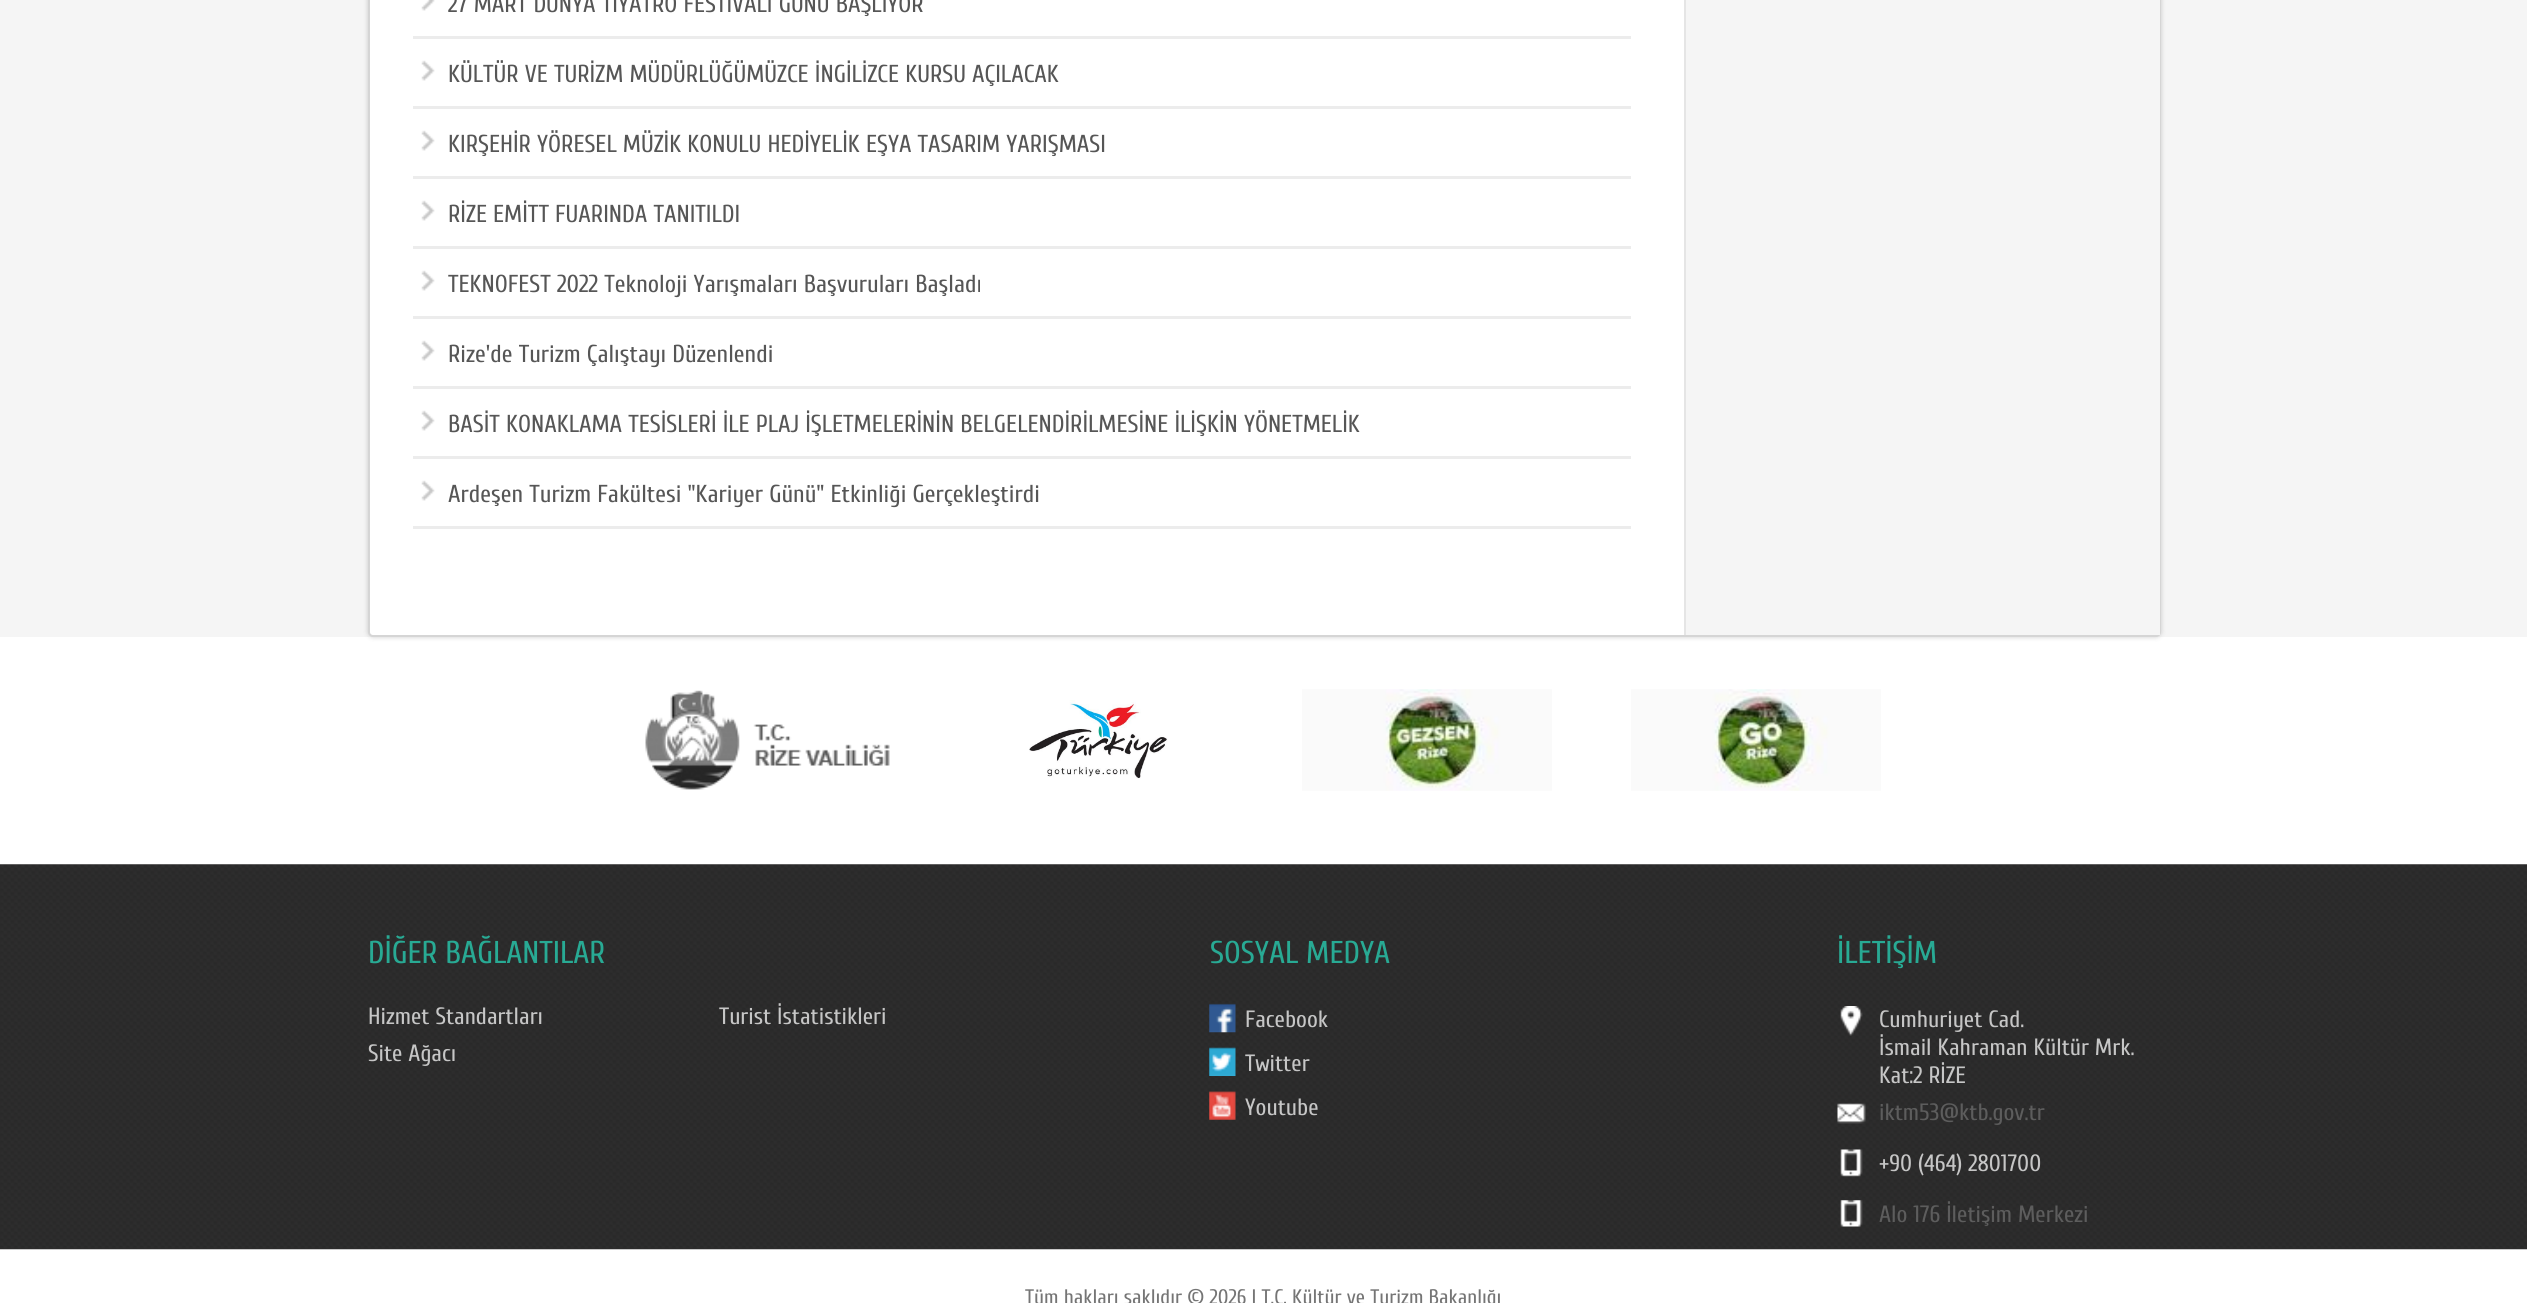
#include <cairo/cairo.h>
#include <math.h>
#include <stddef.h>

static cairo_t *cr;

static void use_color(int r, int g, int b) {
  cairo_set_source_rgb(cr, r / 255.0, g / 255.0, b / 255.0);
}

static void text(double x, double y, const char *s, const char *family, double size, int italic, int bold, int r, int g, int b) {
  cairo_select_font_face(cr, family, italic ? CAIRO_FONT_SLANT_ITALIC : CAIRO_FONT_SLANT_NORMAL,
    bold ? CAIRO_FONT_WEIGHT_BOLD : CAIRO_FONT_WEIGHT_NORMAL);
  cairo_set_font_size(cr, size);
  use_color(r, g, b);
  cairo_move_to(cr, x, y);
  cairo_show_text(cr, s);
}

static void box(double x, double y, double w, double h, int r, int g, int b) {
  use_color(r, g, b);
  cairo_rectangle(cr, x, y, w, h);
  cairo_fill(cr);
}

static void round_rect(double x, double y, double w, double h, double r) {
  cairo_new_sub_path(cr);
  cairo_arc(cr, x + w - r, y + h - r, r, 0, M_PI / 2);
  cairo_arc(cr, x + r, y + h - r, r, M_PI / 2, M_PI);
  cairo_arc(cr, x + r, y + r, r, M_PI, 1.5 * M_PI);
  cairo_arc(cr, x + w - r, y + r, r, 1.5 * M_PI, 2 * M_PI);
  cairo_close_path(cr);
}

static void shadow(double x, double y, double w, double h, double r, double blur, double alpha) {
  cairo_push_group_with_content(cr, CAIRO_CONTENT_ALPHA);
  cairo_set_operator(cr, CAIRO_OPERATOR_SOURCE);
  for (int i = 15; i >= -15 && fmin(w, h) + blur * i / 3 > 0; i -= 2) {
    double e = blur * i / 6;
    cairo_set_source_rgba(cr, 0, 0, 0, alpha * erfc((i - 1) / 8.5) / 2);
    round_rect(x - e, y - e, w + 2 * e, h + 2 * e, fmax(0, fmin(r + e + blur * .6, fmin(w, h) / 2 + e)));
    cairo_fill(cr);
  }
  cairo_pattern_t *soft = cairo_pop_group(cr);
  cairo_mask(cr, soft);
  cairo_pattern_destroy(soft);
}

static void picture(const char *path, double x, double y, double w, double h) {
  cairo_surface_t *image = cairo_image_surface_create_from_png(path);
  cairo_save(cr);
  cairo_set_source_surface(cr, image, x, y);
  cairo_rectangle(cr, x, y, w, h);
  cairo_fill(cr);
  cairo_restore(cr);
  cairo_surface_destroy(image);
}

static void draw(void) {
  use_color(255, 255, 255);
  cairo_paint(cr);
  box(0, 0, 2527, 637, 245, 245, 245);
  use_color(0, 0, 0);
  shadow(368, -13, 1793, 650, 5, 2.5, 0.2);
  use_color(255, 255, 255);
  round_rect(369, -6, 1791, 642, 4);
  cairo_fill_preserve(cr);
  use_color(213, 213, 213);
  cairo_stroke(cr);
  box(413, 36, 1218, 3, 236, 236, 236);
  picture("img_01.png", 421, 0, 14, 11);
  box(413, 106, 1218, 3, 236, 236, 236);
  picture("img_02.png", 421, 60, 14, 21);
  box(413, 176, 1218, 3, 236, 236, 236);
  picture("img_02.png", 421, 130, 14, 21);
  box(413, 246, 1218, 3, 236, 236, 236);
  picture("img_02.png", 421, 200, 14, 21);
  box(413, 316, 1218, 3, 236, 236, 236);
  picture("img_02.png", 421, 270, 14, 21);
  box(413, 386, 1218, 3, 236, 236, 236);
  picture("img_02.png", 421, 340, 14, 21);
  box(413, 456, 1218, 3, 236, 236, 236);
  picture("img_02.png", 421, 410, 14, 21);
  box(413, 526, 1218, 3, 236, 236, 236);
  picture("img_02.png", 421, 480, 14, 21);
  box(1686, 0, 474, 635, 245, 245, 245);
  box(1684, 0, 2, 635, 229, 229, 229);
  picture("img_03.png", 645, 690, 245, 100);
  picture("img_04.png", 1029, 700, 139, 79);
  picture("img_05.png", 1302, 689, 250, 102);
  picture("img_06.png", 1631, 689, 250, 102);
  picture("img_07.png", 0, 864, 2527, 386);
  picture("img_08.png", 1209, 1003, 27, 30);
  picture("img_09.png", 1209, 1047, 27, 29);
  picture("img_10.png", 1209, 1091, 27, 29);
  picture("img_11.png", 1840, 1006, 23, 30);
  picture("img_12.png", 1837, 1103, 29, 21);
  picture("img_13.png", 1840, 1149, 23, 28);
  picture("img_14.png", 1840, 1200, 23, 27);
  text(448, 12, "27 MART DÜNYA TİYATRO FESTİVALİ GÜNÜ BAŞLIYOR", "Cuprum", 24.5, 0, 0, 86, 86, 86);
  text(448, 82, "KÜLTÜR VE TURİZM MÜDÜRLÜĞÜMÜZCE İNGİLİZCE KURSU AÇILACAK", "Cuprum", 24.5, 0, 0, 86, 86, 86);
  text(448, 152, "KIRŞEHİR YÖRESEL MÜZİK KONULU HEDİYELİK EŞYA TASARIM YARIŞMASI", "Cuprum", 24.5, 0, 0, 86, 86, 86);
  text(448, 222, "RİZE EMİTT FUARINDA TANITILDI", "Cuprum", 24.5, 0, 0, 86, 86, 86);
  text(448, 292, "TEKNOFEST 2022 Teknoloji Yarışmaları Başvuruları Başladı", "Cuprum", 24.5, 0, 0, 86, 86, 86);
  text(448, 362, "Rize'de Turizm Çalıştayı Düzenlendi", "Cuprum", 24.5, 0, 0, 86, 86, 86);
  text(448, 432, "BASİT KONAKLAMA TESİSLERİ İLE PLAJ İŞLETMELERİNİN BELGELENDİRİLMESİNE İLİŞKİN YÖNETMELİK", "Cuprum", 24.5, 0, 0, 86, 86, 86);
  text(448, 502, "Ardeşen Turizm Fakültesi \"Kariyer Günü\" Etkinliği Gerçekleştirdi", "Cuprum", 24.5, 0, 0, 86, 86, 86);
  text(368, 963, "DİĞER BAĞLANTILAR", "Cuprum", 31.5, 0, 0, 40, 170, 148);
  text(368, 1024, "Hizmet Standartları", "Cuprum", 23.6, 0, 0, 198, 198, 198);
  text(719, 1024, "Turist İstatistikleri", "Cuprum", 23.6, 0, 0, 198, 198, 198);
  text(368, 1061, "Site Ağacı", "Cuprum", 23.6, 0, 0, 198, 198, 198);
  text(1210, 963, "SOSYAL MEDYA", "Cuprum", 31.5, 0, 0, 40, 170, 148);
  text(1245, 1027, "Facebook", "Cuprum", 23.6, 0, 0, 198, 198, 198);
  text(1245, 1071, "Twitter", "Cuprum", 23.6, 0, 0, 198, 198, 198);
  text(1245, 1115, "Youtube", "Cuprum", 23.6, 0, 0, 198, 198, 198);
  text(1837, 963, "İLETİŞİM", "Cuprum", 31.5, 0, 0, 40, 170, 148);
  text(1879, 1027, "Cumhuriyet Cad.", "Cuprum", 23.6, 0, 0, 198, 198, 198);
  text(1879, 1055, "İsmail Kahraman Kültür Mrk.", "Cuprum", 23.6, 0, 0, 198, 198, 198);
  text(1879, 1083, "Kat:2 RİZE", "Cuprum", 23.6, 0, 0, 198, 198, 198);
  text(1879, 1120, "iktm53@ktb.gov.tr", "Cuprum", 23.6, 0, 0, 93, 93, 93);
  text(1879, 1171, "+90 (464) 2801700", "Cuprum", 23.6, 0, 0, 198, 198, 198);
  text(1879, 1222, "Alo 176 İletişim Merkezi", "Cuprum", 23.6, 0, 0, 93, 93, 93);
  text(1025, 1304, "Tüm hakları saklıdır © 2026 | T.C. Kültür ve Turizm Bakanlığı", "Cuprum", 21, 0, 0, 117, 117, 117);
}

int main(void) {
  cairo_surface_t *surface = cairo_image_surface_create(CAIRO_FORMAT_RGB24, 2527, 1303);
  cr = cairo_create(surface);
  cairo_font_options_t *options = cairo_font_options_create();
  cairo_font_options_set_hint_metrics(options, CAIRO_HINT_METRICS_OFF);
  cairo_font_options_set_hint_style(options, CAIRO_HINT_STYLE_NONE);
  cairo_set_font_options(cr, options);
  cairo_set_miter_limit(cr, 4);
  draw();
  cairo_surface_write_to_png(surface, "out.png");
  cairo_font_options_destroy(options);
  cairo_destroy(cr);
  cairo_surface_destroy(surface);
  return 0;
}
